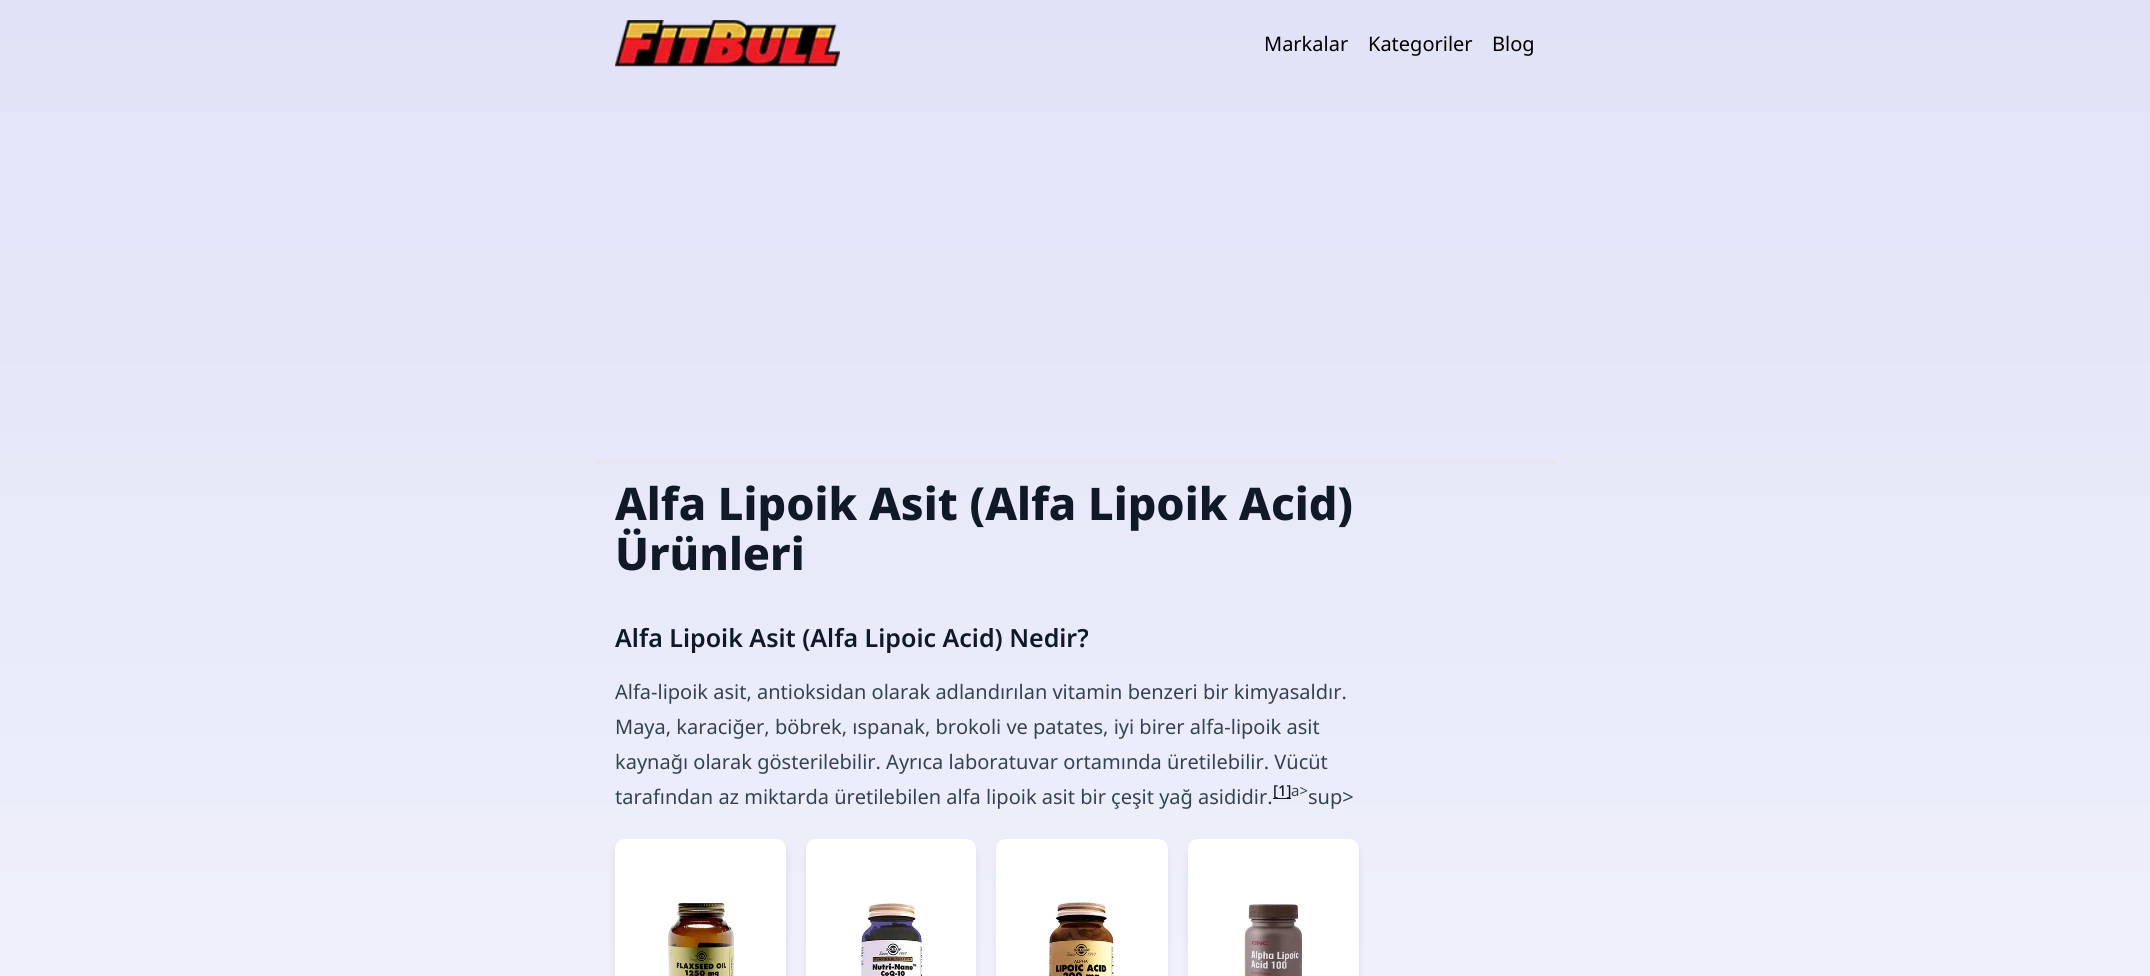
#include <cairo/cairo.h>
#include <math.h>
#include <stddef.h>

static cairo_t *cr;

static void use_color(int r, int g, int b) {
  cairo_set_source_rgb(cr, r / 255.0, g / 255.0, b / 255.0);
}

static void text(double x, double y, const char *s, const char *family, double size, int italic, int bold, int r, int g, int b) {
  cairo_select_font_face(cr, family, italic ? CAIRO_FONT_SLANT_ITALIC : CAIRO_FONT_SLANT_NORMAL,
    bold ? CAIRO_FONT_WEIGHT_BOLD : CAIRO_FONT_WEIGHT_NORMAL);
  cairo_set_font_size(cr, size);
  use_color(r, g, b);
  cairo_move_to(cr, x, y);
  cairo_show_text(cr, s);
}

static void box(double x, double y, double w, double h, int r, int g, int b) {
  use_color(r, g, b);
  cairo_rectangle(cr, x, y, w, h);
  cairo_fill(cr);
}

static void round_rect(double x, double y, double w, double h, double r) {
  cairo_new_sub_path(cr);
  cairo_arc(cr, x + w - r, y + h - r, r, 0, M_PI / 2);
  cairo_arc(cr, x + r, y + h - r, r, M_PI / 2, M_PI);
  cairo_arc(cr, x + r, y + r, r, M_PI, 1.5 * M_PI);
  cairo_arc(cr, x + w - r, y + r, r, 1.5 * M_PI, 2 * M_PI);
  cairo_close_path(cr);
}

static void shadow(double x, double y, double w, double h, double r, double blur, double alpha) {
  cairo_push_group_with_content(cr, CAIRO_CONTENT_ALPHA);
  cairo_set_operator(cr, CAIRO_OPERATOR_SOURCE);
  for (int i = 15; i >= -15 && fmin(w, h) + blur * i / 3 > 0; i -= 2) {
    double e = blur * i / 6;
    cairo_set_source_rgba(cr, 0, 0, 0, alpha * erfc((i - 1) / 8.5) / 2);
    round_rect(x - e, y - e, w + 2 * e, h + 2 * e, fmax(0, fmin(r + e + blur * .6, fmin(w, h) / 2 + e)));
    cairo_fill(cr);
  }
  cairo_pattern_t *soft = cairo_pop_group(cr);
  cairo_mask(cr, soft);
  cairo_pattern_destroy(soft);
}

static void picture(const char *path, double x, double y, double w, double h) {
  cairo_surface_t *image = cairo_image_surface_create_from_png(path);
  cairo_save(cr);
  cairo_set_source_surface(cr, image, x, y);
  cairo_rectangle(cr, x, y, w, h);
  cairo_fill(cr);
  cairo_restore(cr);
  cairo_surface_destroy(image);
}

static void draw(void) {
  cairo_pattern_t *gradient;
  use_color(255, 255, 255);
  cairo_paint(cr);
  gradient = cairo_pattern_create_linear(1075, 0, 1075, 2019);
  cairo_pattern_add_color_stop_rgba(gradient, 0, 0.878, 0.886, 0.969, 1);
  cairo_pattern_add_color_stop_rgba(gradient, 1, 1, 1, 1, 1);
  cairo_set_source(cr, gradient);
  cairo_pattern_destroy(gradient);
  cairo_rectangle(cr, 0, 0, 2150, 976);
  cairo_fill(cr);
  box(595, 461, 960, 3, 229, 231, 235);
  picture("img_01.png", 615, 20, 225, 47);
  box(1273, 798, 18, 1, 17, 24, 39);
  use_color(0, 0, 0);
  shadow(616, 845, 169, 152, 9, 4, 0.1);
  use_color(255, 255, 255);
  round_rect(615, 839, 171, 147, 10);
  cairo_fill(cr);
  picture("img_02.png", 668, 902, 68, 74);
  use_color(0, 0, 0);
  shadow(808, 845, 167, 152, 9, 4, 0.1);
  use_color(255, 255, 255);
  round_rect(806, 839, 170, 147, 10);
  cairo_fill(cr);
  picture("img_03.png", 859, 903, 65, 73);
  use_color(0, 0, 0);
  shadow(998, 845, 168, 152, 9, 4, 0.1);
  use_color(255, 255, 255);
  round_rect(996, 839, 172, 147, 10);
  cairo_fill(cr);
  picture("img_04.png", 1048, 901, 67, 75);
  use_color(0, 0, 0);
  shadow(1189, 845, 169, 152, 9, 4, 0.1);
  use_color(255, 255, 255);
  round_rect(1188, 839, 171, 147, 10);
  cairo_fill(cr);
  picture("img_05.png", 1244, 903, 60, 73);
  text(1264, 51, "Markalar", "Noto Sans", 20, 0, 0, 0, 0, 0);
  text(1368, 51, "Kategoriler", "Noto Sans", 20, 0, 0, 0, 0, 0);
  text(1492, 51, "Blog", "Noto Sans", 20, 0, 0, 0, 0, 0);
  text(615, 520, "Alfa Lipoik Asit (Alfa Lipoik Acid)", "Noto Sans ExtraBold", 45, 0, 0, 17, 24, 39);
  text(615, 570, "Ürünleri", "Noto Sans ExtraBold", 45, 0, 0, 17, 24, 39);
  text(615, 647, "Alfa Lipoik Asit (Alfa Lipoic Acid) Nedir?", "Noto Sans SemiBold", 25, 0, 0, 17, 24, 39);
  text(615, 699, "Alfa-lipoik asit, antioksidan olarak adlandırılan vitamin benzeri bir kimyasaldır.", "Noto Sans", 20, 0, 0, 55, 65, 81);
  text(615, 734, "Maya, karaciğer, böbrek, ıspanak, brokoli ve patates, iyi birer alfa-lipoik asit", "Noto Sans", 20, 0, 0, 55, 65, 81);
  text(615, 769, "kaynağı olarak gösterilebilir. Ayrıca laboratuvar ortamında üretilebilir. Vücüt", "Noto Sans", 20, 0, 0, 55, 65, 81);
  text(615, 804, "tarafından az miktarda üretilebilen alfa lipoik asit bir çeşit yağ asididir.", "Noto Sans", 20, 0, 0, 55, 65, 81);
  text(1273, 796, "[1]", "Noto Sans Medium", 15, 0, 0, 17, 24, 39);
  text(1291, 796, "a>", "Noto Sans", 15, 0, 0, 55, 65, 81);
  text(1308, 804, "sup>", "Noto Sans", 20, 0, 0, 55, 65, 81);
}

int main(void) {
  cairo_surface_t *surface = cairo_image_surface_create(CAIRO_FORMAT_RGB24, 2150, 976);
  cr = cairo_create(surface);
  cairo_font_options_t *options = cairo_font_options_create();
  cairo_font_options_set_hint_metrics(options, CAIRO_HINT_METRICS_OFF);
  cairo_font_options_set_hint_style(options, CAIRO_HINT_STYLE_NONE);
  cairo_set_font_options(cr, options);
  cairo_set_miter_limit(cr, 4);
  draw();
  cairo_surface_write_to_png(surface, "out.png");
  cairo_font_options_destroy(options);
  cairo_destroy(cr);
  cairo_surface_destroy(surface);
  return 0;
}
